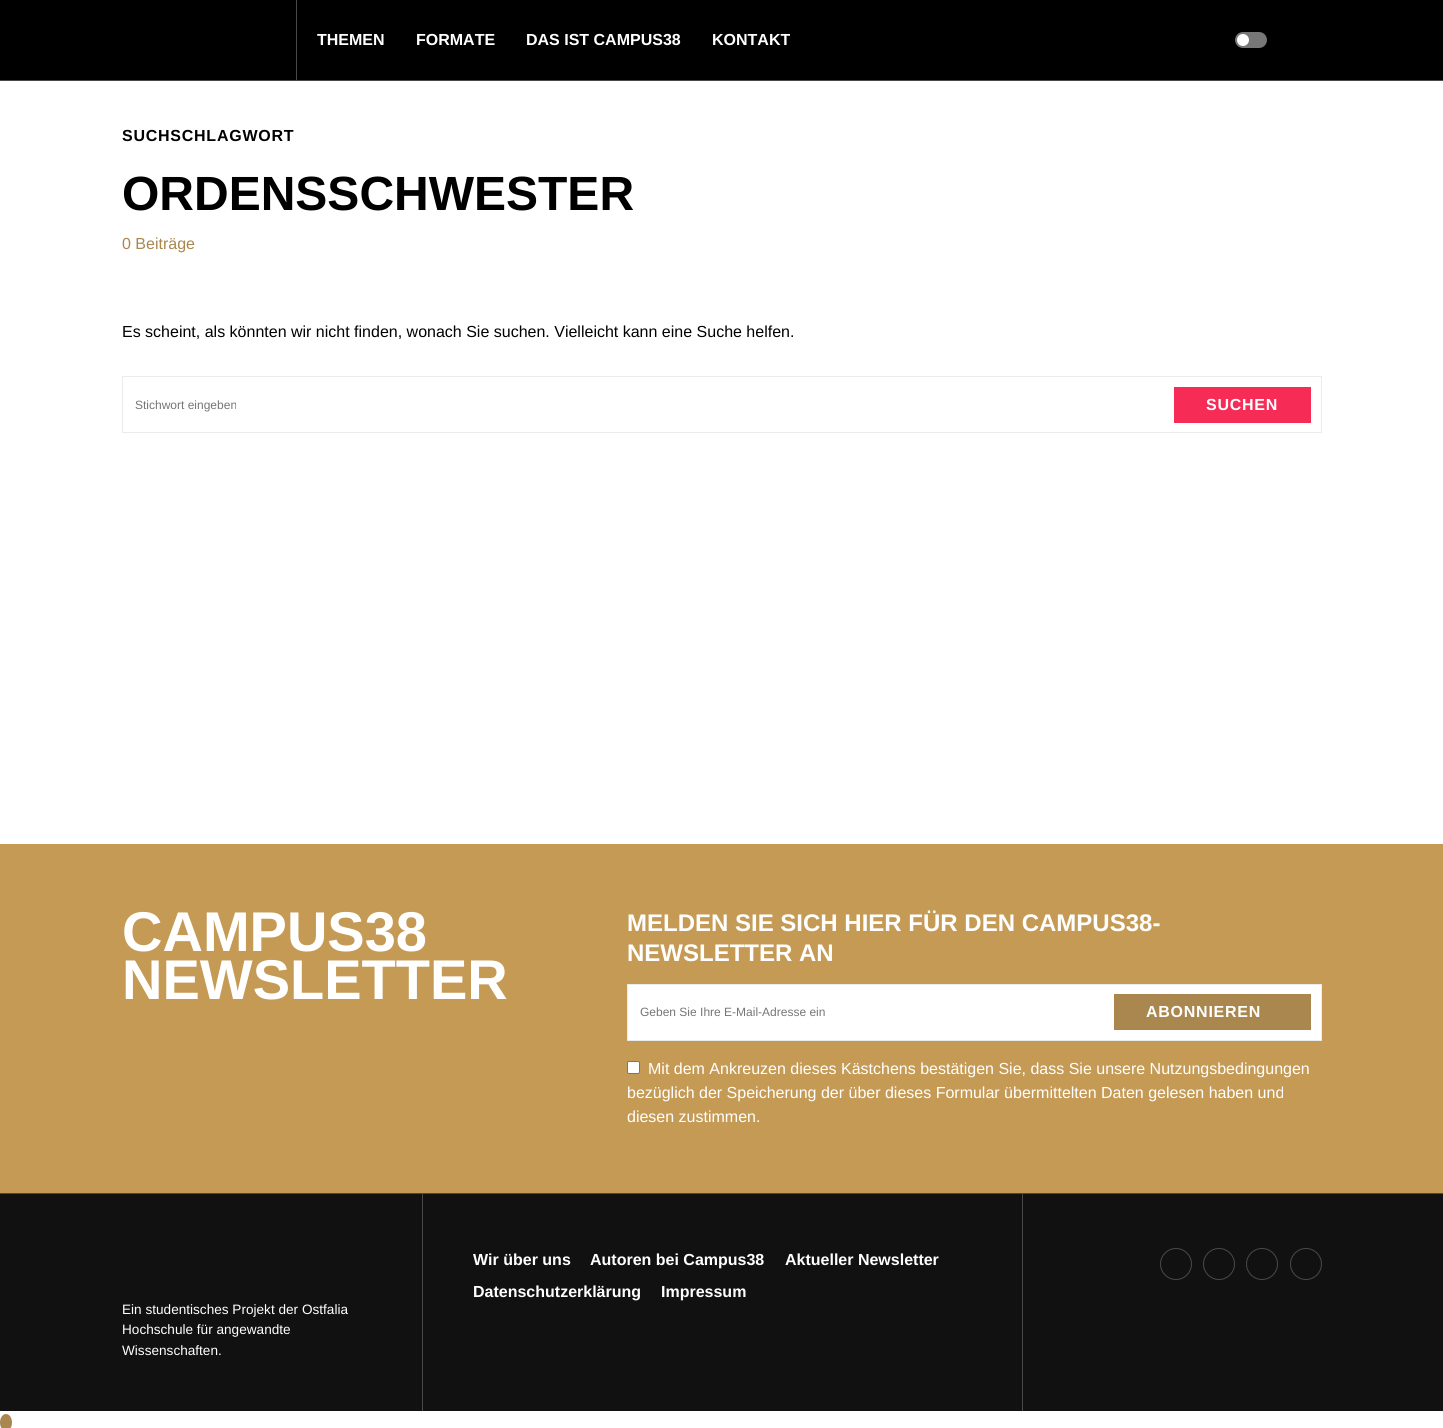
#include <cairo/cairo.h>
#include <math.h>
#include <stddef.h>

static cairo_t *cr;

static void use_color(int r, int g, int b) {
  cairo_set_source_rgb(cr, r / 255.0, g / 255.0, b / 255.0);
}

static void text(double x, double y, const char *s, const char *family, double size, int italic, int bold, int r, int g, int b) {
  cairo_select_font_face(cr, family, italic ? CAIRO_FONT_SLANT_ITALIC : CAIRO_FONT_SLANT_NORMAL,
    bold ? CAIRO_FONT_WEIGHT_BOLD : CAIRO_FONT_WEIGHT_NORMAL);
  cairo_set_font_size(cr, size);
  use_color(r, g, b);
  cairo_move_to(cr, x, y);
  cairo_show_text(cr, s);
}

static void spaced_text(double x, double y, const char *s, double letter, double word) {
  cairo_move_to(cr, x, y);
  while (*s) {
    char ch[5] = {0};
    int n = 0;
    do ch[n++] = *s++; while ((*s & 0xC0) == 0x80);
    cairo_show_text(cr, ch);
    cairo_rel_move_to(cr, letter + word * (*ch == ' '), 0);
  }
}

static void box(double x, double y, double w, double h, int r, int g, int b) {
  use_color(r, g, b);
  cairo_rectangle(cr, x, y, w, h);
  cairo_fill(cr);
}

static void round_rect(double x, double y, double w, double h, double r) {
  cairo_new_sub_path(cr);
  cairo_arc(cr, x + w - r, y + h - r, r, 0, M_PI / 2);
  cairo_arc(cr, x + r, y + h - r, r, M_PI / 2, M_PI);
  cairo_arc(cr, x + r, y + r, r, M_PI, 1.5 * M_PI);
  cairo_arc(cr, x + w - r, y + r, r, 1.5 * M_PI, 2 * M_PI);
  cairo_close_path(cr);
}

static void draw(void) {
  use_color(255, 255, 255);
  cairo_paint(cr);
  box(0, 0, 1443, 80, 0, 0, 0);
  box(0, 80, 1443, 1, 73, 73, 73);
  box(296, 0, 1, 80, 73, 73, 73);
  use_color(119, 119, 119);
  round_rect(1235, 32, 32, 16, 8);
  cairo_fill(cr);
  use_color(255, 255, 255);
  cairo_arc(cr, 1243, 40, 6, 0, 2 * M_PI);
  cairo_fill(cr);
  cairo_rectangle(cr, 122.5, 376.5, 1199, 56);
  use_color(233, 236, 239);
  cairo_set_line_width(cr, 1);
  cairo_stroke(cr);
  box(1174, 387, 137, 36, 246, 43, 86);
  box(0, 1194, 1443, 217, 17, 17, 17);
  box(0, 844, 1443, 349, 197, 154, 85);
  box(0, 1193, 1443, 1, 73, 73, 73);
  use_color(255, 255, 255);
  cairo_rectangle(cr, 627.5, 984.5, 694, 56);
  cairo_fill_preserve(cr);
  use_color(233, 236, 239);
  cairo_stroke(cr);
  box(1114, 994, 197, 36, 169, 135, 79);
  use_color(255, 255, 255);
  round_rect(627.5, 1061.5, 12, 12, 1.5);
  cairo_fill_preserve(cr);
  use_color(118, 118, 118);
  cairo_stroke(cr);
  box(422, 1194, 1, 217, 73, 73, 73);
  box(1022, 1194, 1, 217, 73, 73, 73);
  cairo_arc(cr, 1176, 1264, 15.5, 0, 2 * M_PI);
  cairo_stroke(cr);
  cairo_arc(cr, 1219, 1264, 15.5, 0, 2 * M_PI);
  cairo_stroke(cr);
  cairo_arc(cr, 1262, 1264, 15.5, 0, 2 * M_PI);
  cairo_stroke(cr);
  cairo_arc(cr, 1306, 1264, 15.5, 0, 2 * M_PI);
  cairo_stroke(cr);
  use_color(169, 135, 79);
  cairo_new_path(cr);
  cairo_move_to(cr, 6, 1414);
  cairo_curve_to(cr, 9.5, 1414, 12, 1418, 12, 1422.5);
  cairo_curve_to(cr, 12, 1427, 9.5, 1431, 6, 1431);
  cairo_curve_to(cr, 2.5, 1431, 0, 1427, 0, 1422.5);
  cairo_curve_to(cr, 0, 1418, 2.5, 1414, 6, 1414);
  cairo_close_path(cr);
  cairo_fill(cr);
  text(317, 45, "THEMEN", "Liberation Sans", 16, 0, 1, 255, 255, 255);
  text(416, 45, "FORMATE", "Liberation Sans", 16, 0, 1, 255, 255, 255);
  text(526, 45, "DAS IST CAMPUS38", "Liberation Sans", 16, 0, 1, 255, 255, 255);
  text(712, 45, "KONTAKT", "Liberation Sans", 16, 0, 1, 255, 255, 255);
  use_color(0, 0, 0);
  spaced_text(122, 141, "SUCHSCHLAGWORT", 0.75, 0);
  text(122, 210, "ORDENSSCHWESTER", "Liberation Sans", 48, 0, 1, 0, 0, 0);
  text(122, 249, "0 Beiträge", "Liberation Sans", 16, 0, 0, 169, 135, 79);
  text(122, 337, "Es scheint, als könnten wir nicht finden, wonach Sie suchen. Vielleicht kann eine Suche helfen.", "Liberation Sans", 16, 0, 0, 0, 0, 0);
  text(135, 409, "Stichwort eingeben", "Liberation Sans", 12, 0, 0, 117, 117, 117);
  cairo_select_font_face(cr, "Liberation Sans", CAIRO_FONT_SLANT_NORMAL, CAIRO_FONT_WEIGHT_BOLD);
  cairo_set_font_size(cr, 16);
  use_color(255, 255, 255);
  spaced_text(1206, 410, "SUCHEN", 0.75, 0);
  text(122, 951, "CAMPUS38", "Liberation Sans", 56, 0, 1, 255, 255, 255);
  text(122, 999, "NEWSLETTER", "Liberation Sans", 56, 0, 1, 255, 255, 255);
  text(627, 931, "MELDEN SIE SICH HIER FÜR DEN CAMPUS38-", "Liberation Sans", 24, 0, 1, 255, 255, 255);
  text(627, 961, "NEWSLETTER AN", "Liberation Sans", 24, 0, 1, 255, 255, 255);
  text(640, 1016, "Geben Sie Ihre E-Mail-Adresse ein", "Liberation Sans", 12, 0, 0, 117, 117, 117);
  cairo_select_font_face(cr, "Liberation Sans", CAIRO_FONT_SLANT_NORMAL, CAIRO_FONT_WEIGHT_BOLD);
  cairo_set_font_size(cr, 16);
  use_color(255, 255, 255);
  spaced_text(1146, 1017, "ABONNIEREN", 0.75, 0);
  text(648, 1074, "Mit dem Ankreuzen dieses Kästchens bestätigen Sie, dass Sie unsere Nutzungsbedingungen", "Liberation Sans", 16, 0, 0, 255, 255, 255);
  text(627, 1098, "bezüglich der Speicherung der über dieses Formular übermittelten Daten gelesen haben und", "Liberation Sans", 16, 0, 0, 255, 255, 255);
  text(627, 1122, "diesen zustimmen.", "Liberation Sans", 16, 0, 0, 255, 255, 255);
  text(473, 1265, "Wir über uns", "Liberation Sans", 16, 0, 1, 255, 255, 255);
  text(590, 1265, "Autoren bei Campus38", "Liberation Sans", 16, 0, 1, 255, 255, 255);
  text(785, 1265, "Aktueller Newsletter", "Liberation Sans", 16, 0, 1, 255, 255, 255);
  text(473, 1297, "Datenschutzerklärung", "Liberation Sans", 16, 0, 1, 255, 255, 255);
  text(661, 1297, "Impressum", "Liberation Sans", 16, 0, 1, 255, 255, 255);
  text(122, 1314, "Ein studentisches Projekt der Ostfalia", "Liberation Sans", 13.6, 0, 0, 255, 255, 255);
  text(122, 1334, "Hochschule für angewandte", "Liberation Sans", 13.6, 0, 0, 255, 255, 255);
  text(122, 1355, "Wissenschaften.", "Liberation Sans", 13.6, 0, 0, 255, 255, 255);
}

int main(void) {
  cairo_surface_t *surface = cairo_image_surface_create(CAIRO_FORMAT_RGB24, 1443, 1428);
  cr = cairo_create(surface);
  cairo_font_options_t *options = cairo_font_options_create();
  cairo_font_options_set_hint_metrics(options, CAIRO_HINT_METRICS_OFF);
  cairo_font_options_set_hint_style(options, CAIRO_HINT_STYLE_NONE);
  cairo_set_font_options(cr, options);
  cairo_set_miter_limit(cr, 4);
  draw();
  cairo_surface_write_to_png(surface, "out.png");
  cairo_font_options_destroy(options);
  cairo_destroy(cr);
  cairo_surface_destroy(surface);
  return 0;
}
